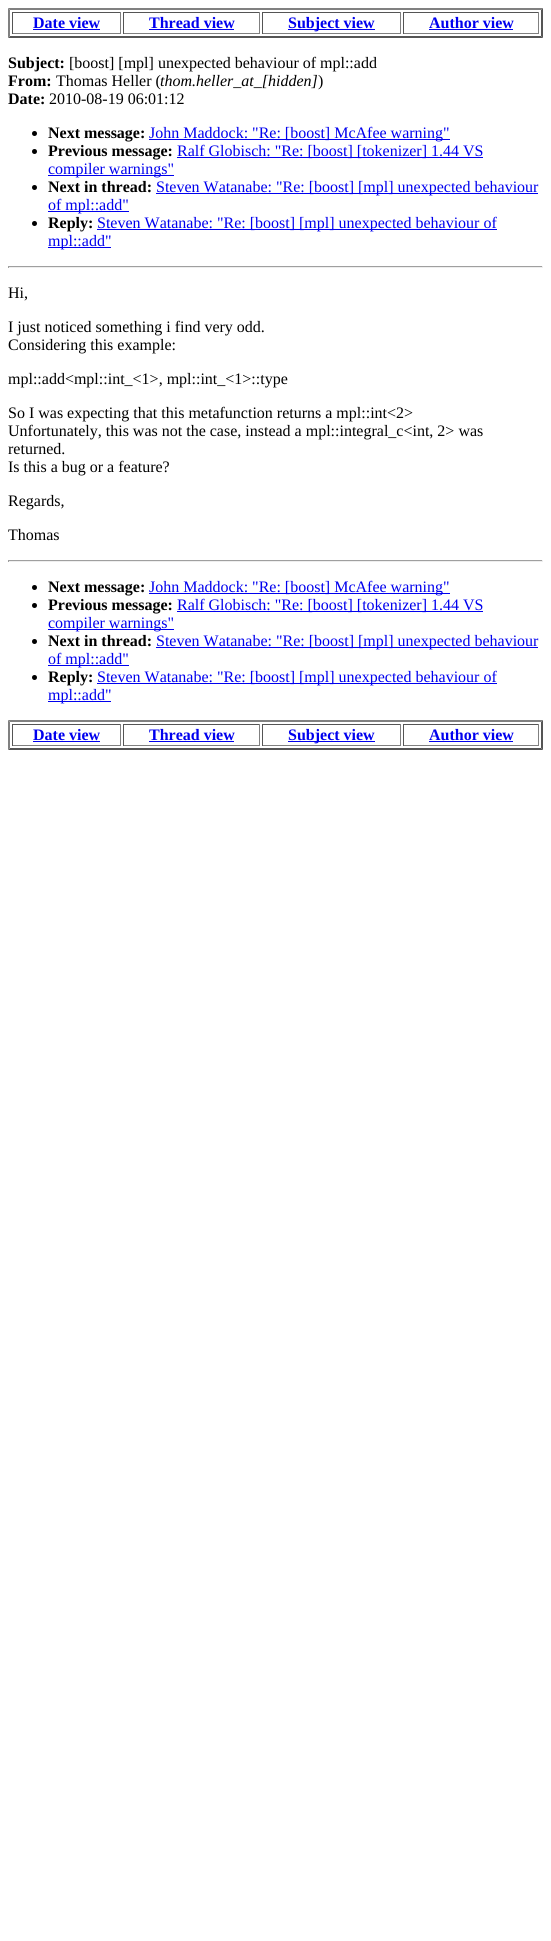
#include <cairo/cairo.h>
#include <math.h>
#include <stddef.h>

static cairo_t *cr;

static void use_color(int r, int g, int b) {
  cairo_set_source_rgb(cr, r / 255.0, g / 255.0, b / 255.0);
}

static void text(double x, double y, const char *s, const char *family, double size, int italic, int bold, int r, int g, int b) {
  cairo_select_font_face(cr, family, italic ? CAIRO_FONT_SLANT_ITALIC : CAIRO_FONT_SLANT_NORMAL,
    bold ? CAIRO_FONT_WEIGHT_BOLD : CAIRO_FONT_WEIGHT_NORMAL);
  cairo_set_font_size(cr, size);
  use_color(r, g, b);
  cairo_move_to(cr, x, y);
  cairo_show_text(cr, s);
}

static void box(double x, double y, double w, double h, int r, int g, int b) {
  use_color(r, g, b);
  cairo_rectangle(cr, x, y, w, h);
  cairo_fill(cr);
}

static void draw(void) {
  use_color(255, 255, 255);
  cairo_paint(cr);
  use_color(128, 128, 128);
  cairo_new_path(cr);
  cairo_move_to(cr, 8, 8);
  cairo_line_to(cr, 543, 8);
  cairo_line_to(cr, 541, 10);
  cairo_line_to(cr, 10, 10);
  cairo_close_path(cr);
  cairo_fill(cr);
  use_color(85, 85, 85);
  cairo_new_path(cr);
  cairo_move_to(cr, 543, 8);
  cairo_line_to(cr, 543, 38);
  cairo_line_to(cr, 541, 36);
  cairo_line_to(cr, 541, 10);
  cairo_close_path(cr);
  cairo_fill(cr);
  cairo_new_path(cr);
  cairo_move_to(cr, 543, 38);
  cairo_line_to(cr, 8, 38);
  cairo_line_to(cr, 10, 36);
  cairo_line_to(cr, 541, 36);
  cairo_close_path(cr);
  cairo_fill(cr);
  use_color(128, 128, 128);
  cairo_new_path(cr);
  cairo_move_to(cr, 8, 38);
  cairo_line_to(cr, 8, 8);
  cairo_line_to(cr, 10, 10);
  cairo_line_to(cr, 10, 36);
  cairo_close_path(cr);
  cairo_fill(cr);
  box(12, 12, 109, 1, 85, 85, 85);
  box(120, 12, 1, 22, 128, 128, 128);
  box(12, 33, 109, 1, 128, 128, 128);
  box(12, 12, 1, 22, 85, 85, 85);
  box(33, 29, 67, 1, 0, 0, 238);
  box(123, 12, 137, 1, 85, 85, 85);
  box(259, 12, 1, 22, 128, 128, 128);
  box(123, 33, 137, 1, 128, 128, 128);
  box(123, 12, 1, 22, 85, 85, 85);
  box(149, 29, 85, 1, 0, 0, 238);
  box(262, 12, 139, 1, 85, 85, 85);
  box(400, 12, 1, 22, 128, 128, 128);
  box(262, 33, 139, 1, 128, 128, 128);
  box(262, 12, 1, 22, 85, 85, 85);
  box(288, 29, 87, 1, 0, 0, 238);
  box(403, 12, 136, 1, 85, 85, 85);
  box(538, 12, 1, 22, 128, 128, 128);
  box(403, 33, 136, 1, 128, 128, 128);
  box(403, 12, 1, 22, 85, 85, 85);
  box(429, 29, 84, 1, 0, 0, 238);
  use_color(0, 0, 0);
  cairo_arc(cr, 34.5, 133.5, 2.5, 0, 2 * M_PI);
  cairo_fill(cr);
  box(149, 139, 301, 1, 0, 0, 238);
  use_color(0, 0, 0);
  cairo_arc(cr, 34.5, 151.5, 2.5, 0, 2 * M_PI);
  cairo_fill(cr);
  box(177, 157, 306, 1, 0, 0, 238);
  box(48, 175, 126, 1, 0, 0, 238);
  use_color(0, 0, 0);
  cairo_arc(cr, 34.5, 187.5, 2.5, 0, 2 * M_PI);
  cairo_fill(cr);
  box(156, 193, 382, 1, 0, 0, 238);
  box(48, 211, 81, 1, 0, 0, 238);
  use_color(0, 0, 0);
  cairo_arc(cr, 34.5, 223.5, 2.5, 0, 2 * M_PI);
  cairo_fill(cr);
  box(97, 229, 400, 1, 0, 0, 238);
  box(48, 247, 63, 1, 0, 0, 238);
  box(8, 266, 535, 1, 159, 159, 159);
  box(542, 266, 1, 2, 238, 238, 238);
  box(8, 267, 535, 1, 238, 238, 238);
  box(8, 266, 1, 2, 159, 159, 159);
  box(8, 560, 535, 1, 159, 159, 159);
  box(542, 560, 1, 2, 238, 238, 238);
  box(8, 561, 535, 1, 238, 238, 238);
  box(8, 560, 1, 2, 159, 159, 159);
  use_color(0, 0, 0);
  cairo_arc(cr, 34.5, 587.5, 2.5, 0, 2 * M_PI);
  cairo_fill(cr);
  box(149, 593, 301, 1, 0, 0, 238);
  use_color(0, 0, 0);
  cairo_arc(cr, 34.5, 605.5, 2.5, 0, 2 * M_PI);
  cairo_fill(cr);
  box(177, 611, 306, 1, 0, 0, 238);
  box(48, 629, 126, 1, 0, 0, 238);
  use_color(0, 0, 0);
  cairo_arc(cr, 34.5, 641.5, 2.5, 0, 2 * M_PI);
  cairo_fill(cr);
  box(156, 647, 382, 1, 0, 0, 238);
  box(48, 665, 81, 1, 0, 0, 238);
  use_color(0, 0, 0);
  cairo_arc(cr, 34.5, 677.5, 2.5, 0, 2 * M_PI);
  cairo_fill(cr);
  box(97, 683, 400, 1, 0, 0, 238);
  box(48, 701, 63, 1, 0, 0, 238);
  use_color(128, 128, 128);
  cairo_new_path(cr);
  cairo_move_to(cr, 8, 720);
  cairo_line_to(cr, 543, 720);
  cairo_line_to(cr, 541, 722);
  cairo_line_to(cr, 10, 722);
  cairo_close_path(cr);
  cairo_fill(cr);
  use_color(85, 85, 85);
  cairo_new_path(cr);
  cairo_move_to(cr, 543, 720);
  cairo_line_to(cr, 543, 750);
  cairo_line_to(cr, 541, 748);
  cairo_line_to(cr, 541, 722);
  cairo_close_path(cr);
  cairo_fill(cr);
  cairo_new_path(cr);
  cairo_move_to(cr, 543, 750);
  cairo_line_to(cr, 8, 750);
  cairo_line_to(cr, 10, 748);
  cairo_line_to(cr, 541, 748);
  cairo_close_path(cr);
  cairo_fill(cr);
  use_color(128, 128, 128);
  cairo_new_path(cr);
  cairo_move_to(cr, 8, 750);
  cairo_line_to(cr, 8, 720);
  cairo_line_to(cr, 10, 722);
  cairo_line_to(cr, 10, 748);
  cairo_close_path(cr);
  cairo_fill(cr);
  box(12, 724, 109, 1, 85, 85, 85);
  box(120, 724, 1, 22, 128, 128, 128);
  box(12, 745, 109, 1, 128, 128, 128);
  box(12, 724, 1, 22, 85, 85, 85);
  box(33, 741, 67, 1, 0, 0, 238);
  box(123, 724, 137, 1, 85, 85, 85);
  box(259, 724, 1, 22, 128, 128, 128);
  box(123, 745, 137, 1, 128, 128, 128);
  box(123, 724, 1, 22, 85, 85, 85);
  box(149, 741, 85, 1, 0, 0, 238);
  box(262, 724, 139, 1, 85, 85, 85);
  box(400, 724, 1, 22, 128, 128, 128);
  box(262, 745, 139, 1, 128, 128, 128);
  box(262, 724, 1, 22, 85, 85, 85);
  box(288, 741, 87, 1, 0, 0, 238);
  box(403, 724, 136, 1, 85, 85, 85);
  box(538, 724, 1, 22, 128, 128, 128);
  box(403, 745, 136, 1, 128, 128, 128);
  box(403, 724, 1, 22, 85, 85, 85);
  box(429, 741, 84, 1, 0, 0, 238);
  text(33, 28, "Date view", "Liberation Serif", 16, 0, 1, 0, 0, 238);
  text(149, 28, "Thread view", "Liberation Serif", 16, 0, 1, 0, 0, 238);
  text(288, 28, "Subject view", "Liberation Serif", 16, 0, 1, 0, 0, 238);
  text(429, 28, "Author view", "Liberation Serif", 16, 0, 1, 0, 0, 238);
  text(8, 68, "Subject:", "Liberation Serif", 16, 0, 1, 0, 0, 0);
  text(69, 68, "[boost] [mpl] unexpected behaviour of mpl::add", "Liberation Serif", 16, 0, 0, 0, 0, 0);
  text(8, 86, "From:", "Liberation Serif", 16, 0, 1, 0, 0, 0);
  text(56, 86, "Thomas Heller (", "Liberation Serif", 16, 0, 0, 0, 0, 0);
  text(160, 86, "thom.heller_at_[hidden]", "Liberation Serif", 16, 1, 0, 0, 0, 0);
  text(318, 86, ")", "Liberation Serif", 16, 0, 0, 0, 0, 0);
  text(8, 104, "Date:", "Liberation Serif", 16, 0, 1, 0, 0, 0);
  text(49, 104, "2010-08-19 06:01:12", "Liberation Serif", 16, 0, 0, 0, 0, 0);
  text(48, 138, "Next message:", "Liberation Serif", 16, 0, 1, 0, 0, 0);
  text(149, 138, "John Maddock: \"Re: [boost] McAfee warning\"", "Liberation Serif", 16, 0, 0, 0, 0, 238);
  text(48, 156, "Previous message:", "Liberation Serif", 16, 0, 1, 0, 0, 0);
  text(177, 156, "Ralf Globisch: \"Re: [boost] [tokenizer] 1.44 VS", "Liberation Serif", 16, 0, 0, 0, 0, 238);
  text(48, 174, "compiler warnings\"", "Liberation Serif", 16, 0, 0, 0, 0, 238);
  text(48, 192, "Next in thread:", "Liberation Serif", 16, 0, 1, 0, 0, 0);
  text(156, 192, "Steven Watanabe: \"Re: [boost] [mpl] unexpected behaviour", "Liberation Serif", 16, 0, 0, 0, 0, 238);
  text(48, 210, "of mpl::add\"", "Liberation Serif", 16, 0, 0, 0, 0, 238);
  text(48, 228, "Reply:", "Liberation Serif", 16, 0, 1, 0, 0, 0);
  text(97, 228, "Steven Watanabe: \"Re: [boost] [mpl] unexpected behaviour of", "Liberation Serif", 16, 0, 0, 0, 0, 238);
  text(48, 246, "mpl::add\"", "Liberation Serif", 16, 0, 0, 0, 0, 238);
  text(8, 298, "Hi,", "Liberation Serif", 16, 0, 0, 0, 0, 0);
  text(8, 332, "I just noticed something i find very odd.", "Liberation Serif", 16, 0, 0, 0, 0, 0);
  text(8, 350, "Considering this example:", "Liberation Serif", 16, 0, 0, 0, 0, 0);
  text(8, 384, "mpl::add<mpl::int_<1>, mpl::int_<1>::type", "Liberation Serif", 16, 0, 0, 0, 0, 0);
  text(8, 418, "So I was expecting that this metafunction returns a mpl::int<2>", "Liberation Serif", 16, 0, 0, 0, 0, 0);
  text(8, 436, "Unfortunately, this was not the case, instead a mpl::integral_c<int, 2> was", "Liberation Serif", 16, 0, 0, 0, 0, 0);
  text(8, 454, "returned.", "Liberation Serif", 16, 0, 0, 0, 0, 0);
  text(8, 472, "Is this a bug or a feature?", "Liberation Serif", 16, 0, 0, 0, 0, 0);
  text(8, 506, "Regards,", "Liberation Serif", 16, 0, 0, 0, 0, 0);
  text(8, 540, "Thomas", "Liberation Serif", 16, 0, 0, 0, 0, 0);
  text(48, 592, "Next message:", "Liberation Serif", 16, 0, 1, 0, 0, 0);
  text(149, 592, "John Maddock: \"Re: [boost] McAfee warning\"", "Liberation Serif", 16, 0, 0, 0, 0, 238);
  text(48, 610, "Previous message:", "Liberation Serif", 16, 0, 1, 0, 0, 0);
  text(177, 610, "Ralf Globisch: \"Re: [boost] [tokenizer] 1.44 VS", "Liberation Serif", 16, 0, 0, 0, 0, 238);
  text(48, 628, "compiler warnings\"", "Liberation Serif", 16, 0, 0, 0, 0, 238);
  text(48, 646, "Next in thread:", "Liberation Serif", 16, 0, 1, 0, 0, 0);
  text(156, 646, "Steven Watanabe: \"Re: [boost] [mpl] unexpected behaviour", "Liberation Serif", 16, 0, 0, 0, 0, 238);
  text(48, 664, "of mpl::add\"", "Liberation Serif", 16, 0, 0, 0, 0, 238);
  text(48, 682, "Reply:", "Liberation Serif", 16, 0, 1, 0, 0, 0);
  text(97, 682, "Steven Watanabe: \"Re: [boost] [mpl] unexpected behaviour of", "Liberation Serif", 16, 0, 0, 0, 0, 238);
  text(48, 700, "mpl::add\"", "Liberation Serif", 16, 0, 0, 0, 0, 238);
  text(33, 740, "Date view", "Liberation Serif", 16, 0, 1, 0, 0, 238);
  text(149, 740, "Thread view", "Liberation Serif", 16, 0, 1, 0, 0, 238);
  text(288, 740, "Subject view", "Liberation Serif", 16, 0, 1, 0, 0, 238);
  text(429, 740, "Author view", "Liberation Serif", 16, 0, 1, 0, 0, 238);
}

int main(void) {
  cairo_surface_t *surface = cairo_image_surface_create(CAIRO_FORMAT_RGB24, 551, 1941);
  cr = cairo_create(surface);
  cairo_font_options_t *options = cairo_font_options_create();
  cairo_font_options_set_hint_metrics(options, CAIRO_HINT_METRICS_OFF);
  cairo_font_options_set_hint_style(options, CAIRO_HINT_STYLE_NONE);
  cairo_set_font_options(cr, options);
  cairo_set_miter_limit(cr, 4);
  draw();
  cairo_surface_write_to_png(surface, "out.png");
  cairo_font_options_destroy(options);
  cairo_destroy(cr);
  cairo_surface_destroy(surface);
  return 0;
}
